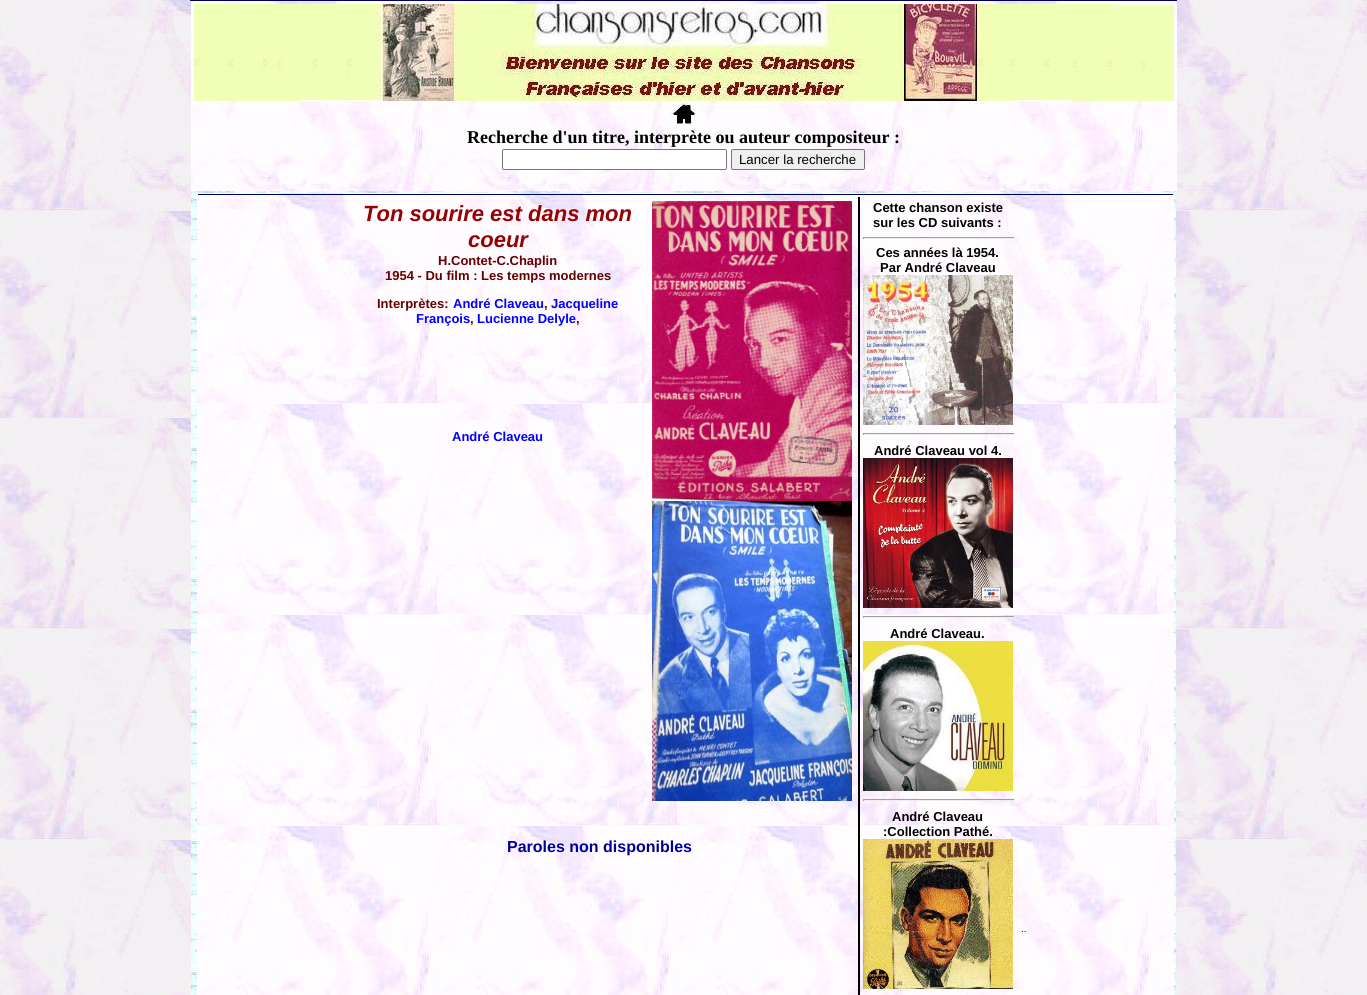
#include <cairo/cairo.h>
#include <math.h>
#include <stddef.h>

static cairo_t *cr;

static void use_color(int r, int g, int b) {
  cairo_set_source_rgb(cr, r / 255.0, g / 255.0, b / 255.0);
}

static void text(double x, double y, const char *s, const char *family, double size, int italic, int bold, int r, int g, int b) {
  cairo_select_font_face(cr, family, italic ? CAIRO_FONT_SLANT_ITALIC : CAIRO_FONT_SLANT_NORMAL,
    bold ? CAIRO_FONT_WEIGHT_BOLD : CAIRO_FONT_WEIGHT_NORMAL);
  cairo_set_font_size(cr, size);
  use_color(r, g, b);
  cairo_move_to(cr, x, y);
  cairo_show_text(cr, s);
}

static void box(double x, double y, double w, double h, int r, int g, int b) {
  use_color(r, g, b);
  cairo_rectangle(cr, x, y, w, h);
  cairo_fill(cr);
}

static void round_rect(double x, double y, double w, double h, double r) {
  cairo_new_sub_path(cr);
  cairo_arc(cr, x + w - r, y + h - r, r, 0, M_PI / 2);
  cairo_arc(cr, x + r, y + h - r, r, M_PI / 2, M_PI);
  cairo_arc(cr, x + r, y + r, r, M_PI, 1.5 * M_PI);
  cairo_arc(cr, x + w - r, y + r, r, 1.5 * M_PI, 2 * M_PI);
  cairo_close_path(cr);
}

static void picture(const char *path, double x, double y, double w, double h) {
  cairo_surface_t *image = cairo_image_surface_create_from_png(path);
  cairo_save(cr);
  cairo_set_source_surface(cr, image, x, y);
  cairo_rectangle(cr, x, y, w, h);
  cairo_fill(cr);
  cairo_restore(cr);
  cairo_surface_destroy(image);
}

static void draw(void) {
  use_color(255, 255, 255);
  cairo_paint(cr);
  picture("img_01.png", 0, 0, 1367, 995);
  box(190, 0, 987, 1, 0, 0, 90);
  picture("img_02.png", 191, 1, 986, 190);
  picture("img_03.png", 194, 4, 980, 97);
  picture("img_04.png", 671, 101, 24, 24);
  use_color(255, 255, 255);
  round_rect(502.5, 149.5, 224, 20, 1.5);
  cairo_fill_preserve(cr);
  use_color(118, 118, 118);
  cairo_set_line_width(cr, 1);
  cairo_stroke(cr);
  use_color(239, 239, 239);
  round_rect(731.5, 149.5, 133, 20, 1.5);
  cairo_fill_preserve(cr);
  use_color(118, 118, 118);
  cairo_stroke(cr);
  picture("img_05.png", 191, 191, 985, 804);
  picture("img_06.png", 197, 193, 977, 802);
  box(198, 194, 975, 1, 0, 0, 90);
  picture("img_07.png", 652, 201, 200, 300);
  picture("img_08.png", 652, 501, 200, 300);
  box(858, 197, 2, 798, 0, 0, 0);
  box(944, 198, 54, 1, 255, 255, 255);
  box(863, 237, 152, 1, 159, 159, 159);
  box(1014, 237, 1, 2, 238, 238, 238);
  box(863, 238, 152, 1, 238, 238, 238);
  box(863, 237, 1, 2, 159, 159, 159);
  picture("img_09.png", 863, 275, 150, 150);
  box(863, 433, 152, 1, 159, 159, 159);
  box(1014, 433, 1, 2, 238, 238, 238);
  box(863, 434, 152, 1, 238, 238, 238);
  box(863, 433, 1, 2, 159, 159, 159);
  picture("img_10.png", 863, 458, 150, 150);
  box(863, 616, 152, 1, 159, 159, 159);
  box(1014, 616, 1, 2, 238, 238, 238);
  box(863, 617, 152, 1, 238, 238, 238);
  box(863, 616, 1, 2, 159, 159, 159);
  picture("img_11.png", 863, 641, 150, 150);
  box(863, 799, 152, 1, 159, 159, 159);
  box(1014, 799, 1, 2, 238, 238, 238);
  box(863, 800, 152, 1, 238, 238, 238);
  box(863, 799, 1, 2, 159, 159, 159);
  picture("img_12.png", 863, 839, 150, 150);
  text(467, 143, "Recherche d'un titre, interprète ou auteur compositeur :", "Liberation Serif", 18, 0, 1, 0, 0, 0);
  text(739, 164, "Lancer la recherche", "Liberation Sans", 13.25, 0, 0, 0, 0, 0);
  text(363, 221, "Ton sourire est dans mon", "Liberation Sans", 22, 1, 1, 153, 0, 0);
  text(468, 247, "coeur", "Liberation Sans", 22, 1, 1, 153, 0, 0);
  text(438, 265, "H.Contet-C.Chaplin", "Liberation Sans", 13, 0, 1, 102, 0, 0);
  text(385, 280, "1954 - Du film : Les temps modernes", "Liberation Sans", 13, 0, 1, 102, 0, 0);
  text(377, 308, "Interprètes:", "Liberation Sans", 13, 0, 1, 102, 0, 0);
  text(453, 308, "André Claveau", "Liberation Sans", 13, 0, 1, 0, 0, 255);
  text(544, 308, ",", "Liberation Sans", 13, 0, 1, 102, 0, 0);
  text(551, 308, "Jacqueline", "Liberation Sans", 13, 0, 1, 0, 0, 255);
  text(416, 323, "François", "Liberation Sans", 13, 0, 1, 0, 0, 255);
  text(470, 323, ",", "Liberation Sans", 13, 0, 1, 102, 0, 0);
  text(477, 323, "Lucienne Delyle", "Liberation Sans", 13, 0, 1, 0, 0, 255);
  text(576, 323, ",", "Liberation Sans", 13, 0, 1, 102, 0, 0);
  text(452, 441, "André Claveau", "Liberation Sans", 13, 0, 1, 0, 0, 255);
  text(507, 852, "Paroles non disponibles", "Liberation Sans", 16, 0, 1, 0, 0, 153);
  text(873, 212, "Cette chanson existe", "Liberation Sans", 13, 0, 1, 0, 0, 0);
  text(873, 227, "sur les CD suivants :", "Liberation Sans", 13, 0, 1, 0, 0, 0);
  text(876, 257, "Ces années là 1954.", "Liberation Sans", 13, 0, 1, 0, 0, 0);
  text(880, 272, "Par André Claveau", "Liberation Sans", 13, 0, 1, 0, 0, 0);
  text(874, 455, "André Claveau vol 4.", "Liberation Sans", 13, 0, 1, 0, 0, 0);
  text(890, 638, "André Claveau.", "Liberation Sans", 13, 0, 1, 0, 0, 0);
  text(892, 821, "André Claveau", "Liberation Sans", 13, 0, 1, 0, 0, 0);
  text(883, 836, ":Collection Pathé.", "Liberation Sans", 13, 0, 1, 0, 0, 0);
  text(1021, 932, "..", "Liberation Sans", 10, 0, 0, 0, 0, 0);
}

int main(void) {
  cairo_surface_t *surface = cairo_image_surface_create(CAIRO_FORMAT_RGB24, 1367, 995);
  cr = cairo_create(surface);
  cairo_font_options_t *options = cairo_font_options_create();
  cairo_font_options_set_hint_metrics(options, CAIRO_HINT_METRICS_OFF);
  cairo_font_options_set_hint_style(options, CAIRO_HINT_STYLE_NONE);
  cairo_set_font_options(cr, options);
  cairo_set_miter_limit(cr, 4);
  draw();
  cairo_surface_write_to_png(surface, "out.png");
  cairo_font_options_destroy(options);
  cairo_destroy(cr);
  cairo_surface_destroy(surface);
  return 0;
}
